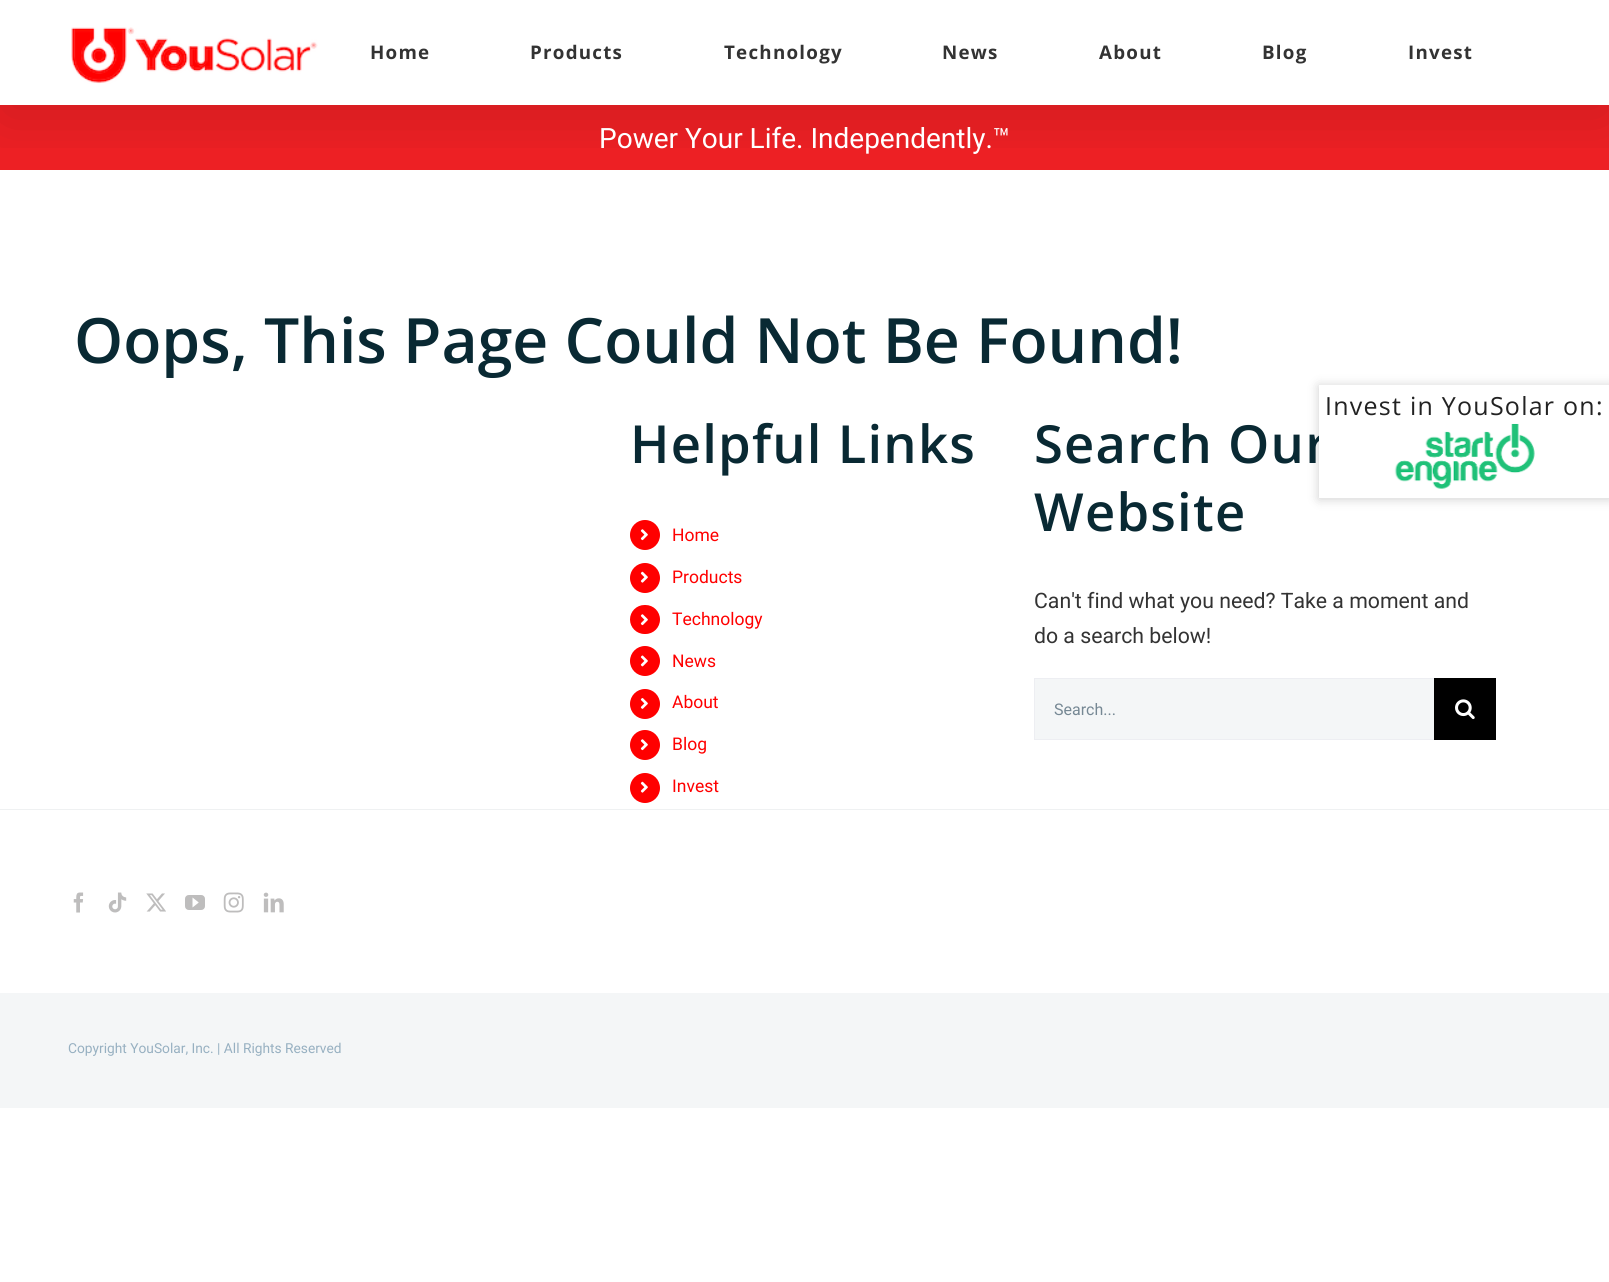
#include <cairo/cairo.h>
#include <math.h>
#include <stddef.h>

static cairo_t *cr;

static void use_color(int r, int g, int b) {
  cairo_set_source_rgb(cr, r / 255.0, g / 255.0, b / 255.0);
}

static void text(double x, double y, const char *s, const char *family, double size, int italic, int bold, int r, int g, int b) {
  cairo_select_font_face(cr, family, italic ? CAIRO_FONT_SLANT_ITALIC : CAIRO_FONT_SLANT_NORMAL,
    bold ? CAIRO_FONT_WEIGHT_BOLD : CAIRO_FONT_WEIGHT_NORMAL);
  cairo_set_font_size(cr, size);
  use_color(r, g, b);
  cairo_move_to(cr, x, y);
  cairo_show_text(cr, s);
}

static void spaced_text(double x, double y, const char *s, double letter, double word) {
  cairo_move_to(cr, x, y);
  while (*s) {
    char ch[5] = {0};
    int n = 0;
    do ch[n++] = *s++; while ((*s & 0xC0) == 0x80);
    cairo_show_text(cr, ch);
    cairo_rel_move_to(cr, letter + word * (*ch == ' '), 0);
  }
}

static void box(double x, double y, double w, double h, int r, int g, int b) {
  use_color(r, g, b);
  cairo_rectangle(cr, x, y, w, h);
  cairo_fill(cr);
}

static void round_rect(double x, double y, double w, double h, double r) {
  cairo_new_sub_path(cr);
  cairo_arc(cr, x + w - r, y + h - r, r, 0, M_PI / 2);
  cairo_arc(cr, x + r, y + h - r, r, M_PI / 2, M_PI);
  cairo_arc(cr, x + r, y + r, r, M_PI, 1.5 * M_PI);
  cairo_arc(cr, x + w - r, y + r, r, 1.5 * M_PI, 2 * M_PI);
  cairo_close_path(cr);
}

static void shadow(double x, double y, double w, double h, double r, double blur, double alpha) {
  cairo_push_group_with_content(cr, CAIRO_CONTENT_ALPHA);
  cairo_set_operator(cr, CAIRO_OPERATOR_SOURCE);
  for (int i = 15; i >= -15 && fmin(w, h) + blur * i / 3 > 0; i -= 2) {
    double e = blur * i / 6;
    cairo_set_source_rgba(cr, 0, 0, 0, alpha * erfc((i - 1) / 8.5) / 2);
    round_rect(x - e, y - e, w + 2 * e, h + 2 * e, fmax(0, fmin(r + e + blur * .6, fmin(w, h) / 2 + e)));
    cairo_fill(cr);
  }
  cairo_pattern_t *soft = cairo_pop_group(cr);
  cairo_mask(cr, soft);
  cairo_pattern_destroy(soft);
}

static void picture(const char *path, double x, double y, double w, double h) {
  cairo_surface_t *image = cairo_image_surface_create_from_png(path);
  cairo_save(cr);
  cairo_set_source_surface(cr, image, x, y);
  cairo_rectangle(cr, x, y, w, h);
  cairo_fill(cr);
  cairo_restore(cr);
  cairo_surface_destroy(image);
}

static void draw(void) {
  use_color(255, 255, 255);
  cairo_paint(cr);
  box(0, 105, 1609, 65, 237, 32, 36);
  cairo_save(cr);
  cairo_rectangle(cr, 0, 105, 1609, 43);
  cairo_clip(cr);
  use_color(0, 0, 0);
  shadow(3, 15, 1605, 100, 0, 31, 0.14);
  cairo_restore(cr);
  picture("img_01.png", 71, 27, 247, 57);
  use_color(255, 0, 0);
  cairo_arc(cr, 645, 535, 15, 0, 2 * M_PI);
  cairo_fill(cr);
  picture("img_02.png", 640, 529, 8, 12);
  cairo_arc(cr, 645, 578, 15, 0, 2 * M_PI);
  cairo_fill(cr);
  picture("img_03.png", 640, 571, 8, 12);
  round_rect(630, 605, 30, 29, 14.5);
  cairo_fill(cr);
  picture("img_02.png", 640, 614, 8, 12);
  cairo_arc(cr, 645, 661, 15, 0, 2 * M_PI);
  cairo_fill(cr);
  picture("img_04.png", 640, 655, 8, 12);
  cairo_arc(cr, 645, 704, 15, 0, 2 * M_PI);
  cairo_fill(cr);
  picture("img_05.png", 640, 698, 8, 11);
  cairo_arc(cr, 645, 745, 15, 0, 2 * M_PI);
  cairo_fill(cr);
  picture("img_02.png", 640, 739, 8, 12);
  cairo_arc(cr, 645, 788, 15, 0, 2 * M_PI);
  cairo_fill(cr);
  picture("img_03.png", 640, 781, 8, 12);
  box(1035, 679, 399, 60, 244, 246, 247);
  box(1034, 678, 400, 1, 237, 238, 242);
  box(1034, 739, 400, 1, 237, 238, 242);
  box(1034, 678, 1, 62, 237, 238, 242);
  box(1434, 678, 62, 62, 0, 0, 0);
  picture("img_06.png", 1455, 699, 20, 21);
  box(0, 809, 1609, 1, 239, 241, 242);
  picture("img_07.png", 73, 892, 11, 21);
  picture("img_08.png", 108, 892, 19, 21);
  picture("img_09.png", 146, 893, 20, 19);
  picture("img_10.png", 185, 895, 20, 15);
  picture("img_11.png", 223, 892, 21, 21);
  picture("img_12.png", 263, 892, 21, 21);
  box(0, 993, 1609, 115, 244, 246, 247);
  use_color(0, 0, 0);
  shadow(1319, 386, 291, 113, 0, 5.5, 0.2);
  cairo_select_font_face(cr, "Open Sans", CAIRO_FONT_SLANT_NORMAL, CAIRO_FONT_WEIGHT_BOLD);
  cairo_set_font_size(cr, 18.75);
  use_color(51, 51, 51);
  spaced_text(370, 59, "Home", 1.25, 0);
  spaced_text(530, 59, "Products", 1.25, 0);
  spaced_text(724, 59, "Technology", 1.25, 0);
  spaced_text(942, 59, "News", 1.25, 0);
  spaced_text(1099, 59, "About", 1.25, 0);
  spaced_text(1262, 59, "Blog", 1.25, 0);
  spaced_text(1408, 59, "Invest", 1.25, 0);
  text(599, 148, "Power Your Life. Independently.™", "Roboto", 28, 0, 0, 255, 255, 255);
  text(74, 363, "Oops, This Page Could Not Be Found!", "Open Sans SemiBold", 62.5, 0, 0, 9, 41, 51);
  cairo_set_font_size(cr, 52.5);
  spaced_text(630, 463, "Helpful Links", 1.25, 0);
  text(672, 541, "Home", "Roboto", 17.5, 0, 0, 255, 0, 0);
  text(672, 583, "Products", "Roboto", 17.5, 0, 0, 255, 0, 0);
  text(672, 625, "Technology", "Roboto", 17.5, 0, 0, 255, 0, 0);
  text(672, 667, "News", "Roboto", 17.5, 0, 0, 255, 0, 0);
  text(672, 708, "About", "Roboto", 17.5, 0, 0, 255, 0, 0);
  text(672, 750, "Blog", "Roboto", 17.5, 0, 0, 255, 0, 0);
  text(672, 792, "Invest", "Roboto", 17.5, 0, 0, 255, 0, 0);
  cairo_select_font_face(cr, "Open Sans SemiBold", CAIRO_FONT_SLANT_NORMAL, CAIRO_FONT_WEIGHT_NORMAL);
  cairo_set_font_size(cr, 52.5);
  use_color(9, 41, 51);
  spaced_text(1034, 463, "Search Our", 1.25, 0);
  spaced_text(1034, 531, "Website", 1.25, 0);
  text(1034, 608, "Can't find what you need? Take a moment and", "Roboto", 21.25, 0, 0, 51, 51, 51);
  text(1034, 643, "do a search below!", "Roboto", 21.25, 0, 0, 51, 51, 51);
  text(1054, 715, "Search...", "Roboto", 16, 0, 0, 118, 136, 148);
  text(68, 1053, "Copyright YouSolar, Inc. | All Rights Reserved", "Roboto", 13.75, 0, 0, 151, 176, 193);
  box(1319, 385, 290, 113, 255, 255, 255);
  cairo_select_font_face(cr, "Open Sans", CAIRO_FONT_SLANT_NORMAL, CAIRO_FONT_WEIGHT_NORMAL);
  cairo_set_font_size(cr, 25);
  use_color(34, 34, 34);
  spaced_text(1325, 415, "Invest in YouSolar on:", 1.25, 0);
  picture("img_13.png", 1394, 423, 141, 66);
}

int main(void) {
  cairo_surface_t *surface = cairo_image_surface_create(CAIRO_FORMAT_RGB24, 1609, 1282);
  cr = cairo_create(surface);
  cairo_font_options_t *options = cairo_font_options_create();
  cairo_font_options_set_hint_metrics(options, CAIRO_HINT_METRICS_OFF);
  cairo_font_options_set_hint_style(options, CAIRO_HINT_STYLE_NONE);
  cairo_set_font_options(cr, options);
  cairo_set_miter_limit(cr, 4);
  draw();
  cairo_surface_write_to_png(surface, "out.png");
  cairo_font_options_destroy(options);
  cairo_destroy(cr);
  cairo_surface_destroy(surface);
  return 0;
}
